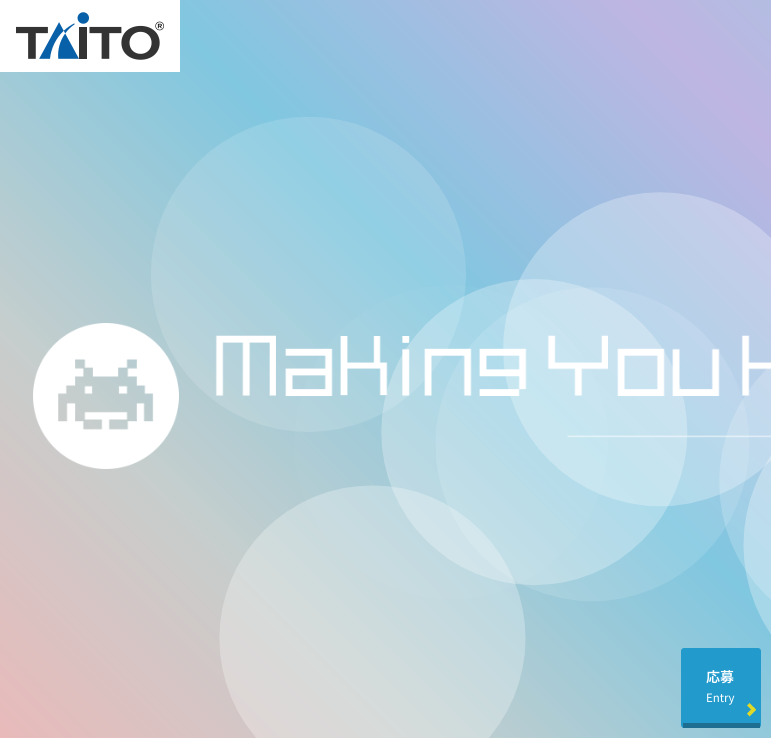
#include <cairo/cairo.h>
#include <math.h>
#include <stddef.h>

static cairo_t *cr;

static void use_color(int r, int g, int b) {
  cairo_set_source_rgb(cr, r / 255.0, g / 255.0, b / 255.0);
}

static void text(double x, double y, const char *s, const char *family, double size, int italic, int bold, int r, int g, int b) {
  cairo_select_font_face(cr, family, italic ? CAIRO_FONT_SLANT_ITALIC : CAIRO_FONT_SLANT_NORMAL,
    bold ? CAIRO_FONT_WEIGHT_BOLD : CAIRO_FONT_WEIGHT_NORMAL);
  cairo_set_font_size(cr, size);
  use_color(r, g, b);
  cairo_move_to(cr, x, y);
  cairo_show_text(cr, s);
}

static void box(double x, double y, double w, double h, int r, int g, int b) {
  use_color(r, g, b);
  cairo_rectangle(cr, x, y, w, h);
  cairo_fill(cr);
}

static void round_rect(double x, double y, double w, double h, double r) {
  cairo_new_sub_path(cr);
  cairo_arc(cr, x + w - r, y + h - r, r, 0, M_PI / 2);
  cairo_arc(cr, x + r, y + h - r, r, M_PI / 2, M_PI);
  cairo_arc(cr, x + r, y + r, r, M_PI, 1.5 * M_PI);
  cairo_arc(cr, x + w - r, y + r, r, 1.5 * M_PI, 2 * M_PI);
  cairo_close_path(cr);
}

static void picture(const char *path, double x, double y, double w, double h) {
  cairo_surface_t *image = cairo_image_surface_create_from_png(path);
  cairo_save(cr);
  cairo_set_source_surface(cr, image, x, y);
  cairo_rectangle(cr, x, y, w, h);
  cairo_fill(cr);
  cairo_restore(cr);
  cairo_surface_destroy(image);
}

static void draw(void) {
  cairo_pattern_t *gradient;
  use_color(255, 255, 255);
  cairo_paint(cr);
  gradient = cairo_pattern_create_linear(76, 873, 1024, -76);
  cairo_pattern_add_color_stop_rgba(gradient, 0, 0.933, 0.718, 0.718, 1);
  cairo_pattern_add_color_stop_rgba(gradient, 0.25, 0.776, 0.808, 0.804, 1);
  cairo_pattern_add_color_stop_rgba(gradient, 0.5, 0.502, 0.78, 0.878, 1);
  cairo_pattern_add_color_stop_rgba(gradient, 0.75, 0.745, 0.71, 0.886, 1);
  cairo_pattern_add_color_stop_rgba(gradient, 1, 0.604, 0.808, 0.882, 1);
  cairo_set_source(cr, gradient);
  cairo_pattern_destroy(gradient);
  cairo_rectangle(cr, 0, 0, 771, 738);
  cairo_fill(cr);
  box(0, 0, 180, 72, 255, 255, 255);
  picture("img_01.png", 16, 12, 148, 48);
  picture("img_02.png", 151, 117, 620, 621);
  picture("img_03.png", 33, 323, 738, 146);
  use_color(35, 154, 204);
  round_rect(681, 648, 80, 80, 3);
  cairo_fill(cr);
  box(683, 723, 77, 5, 29, 110, 144);
  use_color(223, 217, 39);
  cairo_new_path(cr);
  cairo_move_to(cr, 749.5, 703);
  cairo_line_to(cr, 756, 709.5);
  cairo_line_to(cr, 753.5, 712);
  cairo_line_to(cr, 747, 705.5);
  cairo_close_path(cr);
  cairo_fill(cr);
  cairo_new_path(cr);
  cairo_move_to(cr, 753.5, 707);
  cairo_line_to(cr, 756, 710);
  cairo_line_to(cr, 749.5, 716.5);
  cairo_line_to(cr, 747, 713.5);
  cairo_close_path(cr);
  cairo_fill(cr);
  text(706, 682, "応募", "Noto Sans JP SemiBold", 14, 0, 0, 255, 255, 255);
  text(706, 702, "Entry", "Noto Sans JP", 11.5, 0, 0, 255, 255, 255);
}

int main(void) {
  cairo_surface_t *surface = cairo_image_surface_create(CAIRO_FORMAT_RGB24, 771, 738);
  cr = cairo_create(surface);
  cairo_font_options_t *options = cairo_font_options_create();
  cairo_font_options_set_hint_metrics(options, CAIRO_HINT_METRICS_OFF);
  cairo_font_options_set_hint_style(options, CAIRO_HINT_STYLE_NONE);
  cairo_set_font_options(cr, options);
  cairo_set_miter_limit(cr, 4);
  draw();
  cairo_surface_write_to_png(surface, "out.png");
  cairo_font_options_destroy(options);
  cairo_destroy(cr);
  cairo_surface_destroy(surface);
  return 0;
}
